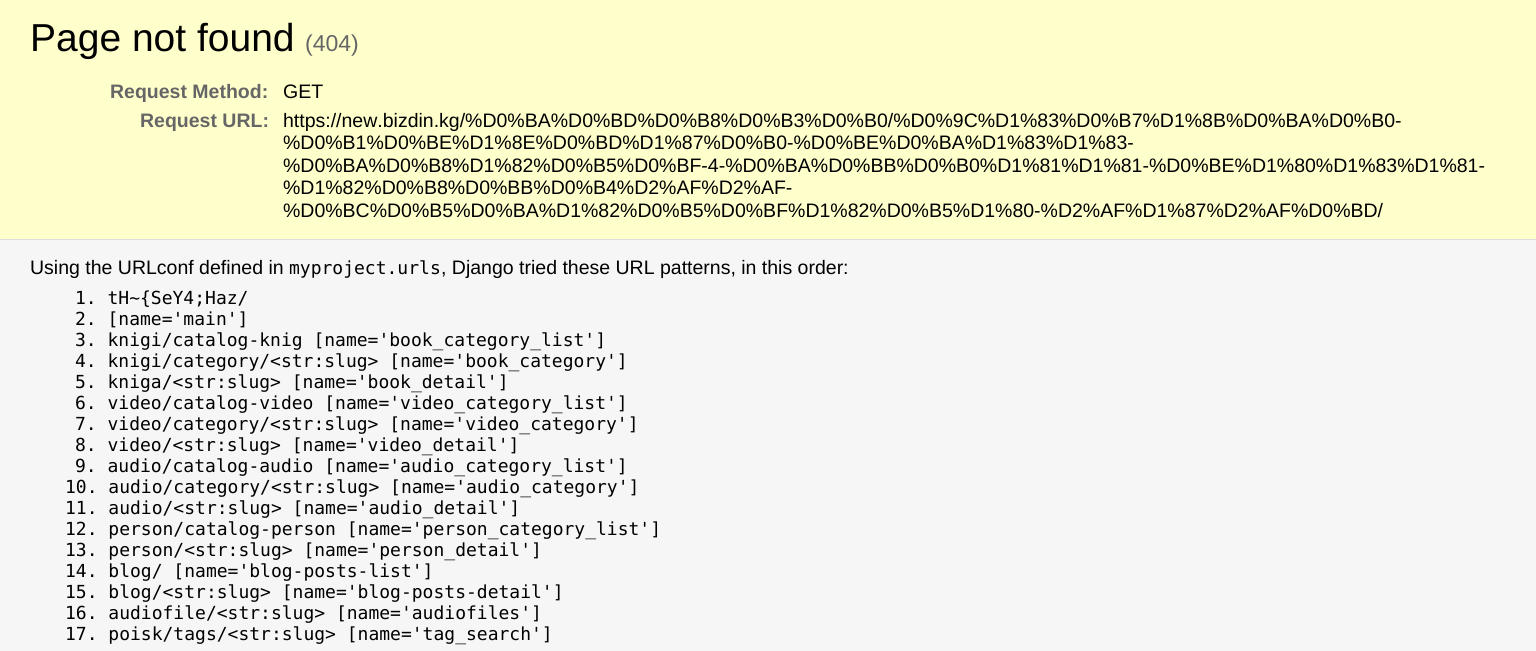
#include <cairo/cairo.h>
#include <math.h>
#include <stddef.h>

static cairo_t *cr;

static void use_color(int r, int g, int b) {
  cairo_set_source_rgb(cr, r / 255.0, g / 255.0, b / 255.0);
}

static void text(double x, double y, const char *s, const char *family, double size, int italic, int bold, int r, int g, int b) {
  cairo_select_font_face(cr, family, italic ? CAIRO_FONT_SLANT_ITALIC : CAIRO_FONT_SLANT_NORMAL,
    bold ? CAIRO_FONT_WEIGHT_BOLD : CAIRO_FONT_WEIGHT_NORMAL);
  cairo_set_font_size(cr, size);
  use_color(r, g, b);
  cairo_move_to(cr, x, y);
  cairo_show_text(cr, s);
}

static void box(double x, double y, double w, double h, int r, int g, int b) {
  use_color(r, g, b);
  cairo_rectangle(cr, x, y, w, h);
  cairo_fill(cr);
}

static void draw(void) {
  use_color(255, 255, 204);
  cairo_paint(cr);
  box(0, 239, 1536, 1, 221, 221, 221);
  box(0, 240, 1536, 411, 246, 246, 246);
  text(30, 51, "Page not found", "Liberation Sans", 39, 0, 0, 0, 0, 0);
  text(305, 51, "(404)", "Liberation Sans", 23, 0, 0, 102, 102, 102);
  text(110, 98, "Request Method:", "Liberation Sans", 19.5, 0, 1, 102, 102, 102);
  text(283, 98, "GET", "Liberation Sans", 19.5, 0, 0, 0, 0, 0);
  text(140, 127, "Request URL:", "Liberation Sans", 19.5, 0, 1, 102, 102, 102);
  text(283, 127, "https://new.bizdin.kg/%D0%BA%D0%BD%D0%B8%D0%B3%D0%B0/%D0%9C%D1%83%D0%B7%D1%8B%D0%BA%D0%B0-", "Liberation Sans", 19.5, 0, 0, 0, 0, 0);
  text(283, 149, "%D0%B1%D0%BE%D1%8E%D0%BD%D1%87%D0%B0-%D0%BE%D0%BA%D1%83%D1%83-", "Liberation Sans", 19.5, 0, 0, 0, 0, 0);
  text(283, 172, "%D0%BA%D0%B8%D1%82%D0%B5%D0%BF-4-%D0%BA%D0%BB%D0%B0%D1%81%D1%81-%D0%BE%D1%80%D1%83%D1%81-", "Liberation Sans", 19.5, 0, 0, 0, 0, 0);
  text(283, 194, "%D1%82%D0%B8%D0%BB%D0%B4%D2%AF%D2%AF-", "Liberation Sans", 19.5, 0, 0, 0, 0, 0);
  text(283, 217, "%D0%BC%D0%B5%D0%BA%D1%82%D0%B5%D0%BF%D1%82%D0%B5%D1%80-%D2%AF%D1%87%D2%AF%D0%BD/", "Liberation Sans", 19.5, 0, 0, 0, 0, 0);
  text(30, 274, "Using the URLconf defined in", "Liberation Sans", 19.5, 0, 0, 0, 0, 0);
  text(289, 274, "myproject.urls", "DejaVu Sans Mono", 18, 0, 0, 0, 0, 0);
  text(441, 274, ", Django tried these URL patterns, in this order:", "Liberation Sans", 19.5, 0, 0, 0, 0, 0);
  text(75, 304, "1. tH~{SeY4;Haz/", "DejaVu Sans Mono", 18, 0, 0, 0, 0, 0);
  text(75, 325, "2. [name='main']", "DejaVu Sans Mono", 18, 0, 0, 0, 0, 0);
  text(75, 346, "3. knigi/catalog-knig [name='book_category_list']", "DejaVu Sans Mono", 18, 0, 0, 0, 0, 0);
  text(75, 367, "4. knigi/category/<str:slug> [name='book_category']", "DejaVu Sans Mono", 18, 0, 0, 0, 0, 0);
  text(75, 388, "5. kniga/<str:slug> [name='book_detail']", "DejaVu Sans Mono", 18, 0, 0, 0, 0, 0);
  text(75, 409, "6. video/catalog-video [name='video_category_list']", "DejaVu Sans Mono", 18, 0, 0, 0, 0, 0);
  text(75, 430, "7. video/category/<str:slug> [name='video_category']", "DejaVu Sans Mono", 18, 0, 0, 0, 0, 0);
  text(75, 451, "8. video/<str:slug> [name='video_detail']", "DejaVu Sans Mono", 18, 0, 0, 0, 0, 0);
  text(75, 472, "9. audio/catalog-audio [name='audio_category_list']", "DejaVu Sans Mono", 18, 0, 0, 0, 0, 0);
  text(65, 493, "10. audio/category/<str:slug> [name='audio_category']", "DejaVu Sans Mono", 18, 0, 0, 0, 0, 0);
  text(65, 514, "11. audio/<str:slug> [name='audio_detail']", "DejaVu Sans Mono", 18, 0, 0, 0, 0, 0);
  text(65, 535, "12. person/catalog-person [name='person_category_list']", "DejaVu Sans Mono", 18, 0, 0, 0, 0, 0);
  text(65, 556, "13. person/<str:slug> [name='person_detail']", "DejaVu Sans Mono", 18, 0, 0, 0, 0, 0);
  text(65, 577, "14. blog/ [name='blog-posts-list']", "DejaVu Sans Mono", 18, 0, 0, 0, 0, 0);
  text(65, 598, "15. blog/<str:slug> [name='blog-posts-detail']", "DejaVu Sans Mono", 18, 0, 0, 0, 0, 0);
  text(65, 619, "16. audiofile/<str:slug> [name='audiofiles']", "DejaVu Sans Mono", 18, 0, 0, 0, 0, 0);
  text(65, 640, "17. poisk/tags/<str:slug> [name='tag_search']", "DejaVu Sans Mono", 18, 0, 0, 0, 0, 0);
}

int main(void) {
  cairo_surface_t *surface = cairo_image_surface_create(CAIRO_FORMAT_RGB24, 1536, 651);
  cr = cairo_create(surface);
  cairo_font_options_t *options = cairo_font_options_create();
  cairo_font_options_set_hint_metrics(options, CAIRO_HINT_METRICS_OFF);
  cairo_font_options_set_hint_style(options, CAIRO_HINT_STYLE_NONE);
  cairo_set_font_options(cr, options);
  cairo_set_miter_limit(cr, 4);
  draw();
  cairo_surface_write_to_png(surface, "out.png");
  cairo_font_options_destroy(options);
  cairo_destroy(cr);
  cairo_surface_destroy(surface);
  return 0;
}
